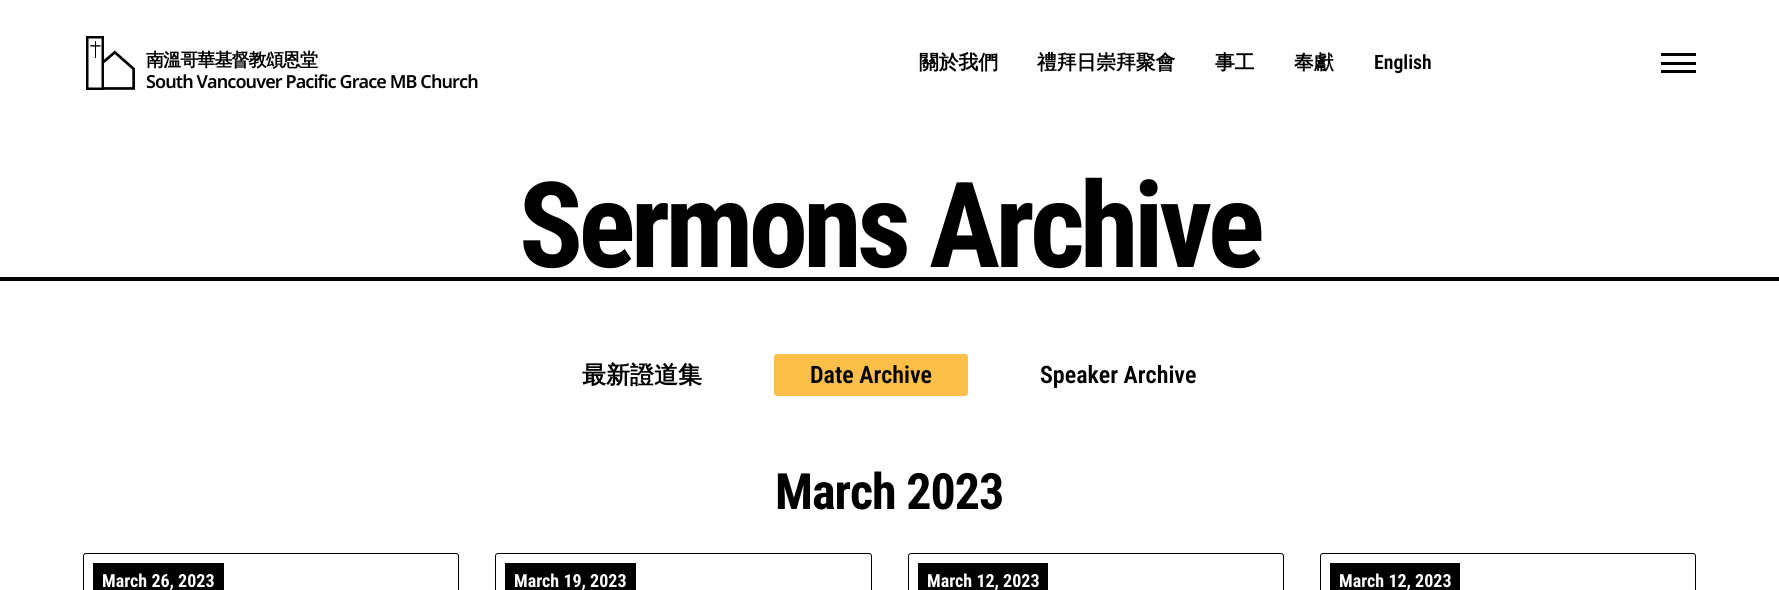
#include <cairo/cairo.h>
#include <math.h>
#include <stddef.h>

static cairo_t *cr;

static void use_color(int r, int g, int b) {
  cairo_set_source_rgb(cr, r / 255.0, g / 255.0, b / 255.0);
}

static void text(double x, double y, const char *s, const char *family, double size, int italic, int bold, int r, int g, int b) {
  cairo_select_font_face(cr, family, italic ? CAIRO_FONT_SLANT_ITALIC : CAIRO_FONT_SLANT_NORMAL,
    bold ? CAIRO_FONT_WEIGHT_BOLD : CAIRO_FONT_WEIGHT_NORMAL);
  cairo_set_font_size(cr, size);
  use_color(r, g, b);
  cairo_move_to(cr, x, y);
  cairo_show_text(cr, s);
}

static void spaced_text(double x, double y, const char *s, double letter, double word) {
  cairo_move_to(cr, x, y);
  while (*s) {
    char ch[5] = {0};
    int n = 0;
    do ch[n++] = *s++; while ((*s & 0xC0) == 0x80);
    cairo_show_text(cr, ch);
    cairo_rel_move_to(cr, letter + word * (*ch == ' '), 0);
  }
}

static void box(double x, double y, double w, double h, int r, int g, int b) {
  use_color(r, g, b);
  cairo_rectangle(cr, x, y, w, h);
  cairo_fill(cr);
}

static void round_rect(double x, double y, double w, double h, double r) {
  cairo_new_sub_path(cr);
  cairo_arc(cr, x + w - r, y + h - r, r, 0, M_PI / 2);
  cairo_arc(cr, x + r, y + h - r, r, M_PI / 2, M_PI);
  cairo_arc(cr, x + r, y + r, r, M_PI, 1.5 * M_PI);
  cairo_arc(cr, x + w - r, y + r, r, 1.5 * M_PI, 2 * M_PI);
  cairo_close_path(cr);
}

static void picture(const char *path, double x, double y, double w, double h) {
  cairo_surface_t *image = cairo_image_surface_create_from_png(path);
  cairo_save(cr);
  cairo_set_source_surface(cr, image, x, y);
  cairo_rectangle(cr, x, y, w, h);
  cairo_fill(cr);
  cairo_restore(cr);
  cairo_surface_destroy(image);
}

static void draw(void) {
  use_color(255, 255, 255);
  cairo_paint(cr);
  picture("img_01.png", 86, 36, 49, 54);
  box(1661, 53, 35, 3, 0, 0, 0);
  box(1661, 70, 35, 3, 0, 0, 0);
  box(1661, 62, 35, 3, 0, 0, 0);
  box(0, 277, 1779, 4, 0, 0, 0);
  use_color(252, 191, 73);
  round_rect(774, 354, 194, 42, 3);
  cairo_fill(cr);
  round_rect(83.5, 553.5, 375, 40, 2.5);
  use_color(0, 0, 0);
  cairo_set_line_width(cr, 1);
  cairo_stroke(cr);
  box(93, 563, 131, 27, 0, 0, 0);
  round_rect(495.5, 553.5, 376, 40, 2.5);
  cairo_stroke(cr);
  box(505, 563, 131, 27, 0, 0, 0);
  round_rect(908.5, 553.5, 375, 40, 2.5);
  cairo_stroke(cr);
  box(918, 563, 130, 27, 0, 0, 0);
  round_rect(1320.5, 553.5, 375, 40, 2.5);
  cairo_stroke(cr);
  box(1330, 563, 130, 27, 0, 0, 0);
  cairo_select_font_face(cr, "WenQuanYi Zen Hei", CAIRO_FONT_SLANT_NORMAL, CAIRO_FONT_WEIGHT_BOLD);
  cairo_set_font_size(cr, 18);
  spaced_text(146, 66, "南溫哥華基督教頌恩堂", -0.9, 0);
  cairo_select_font_face(cr, "Noto Sans SemiBold", CAIRO_FONT_SLANT_NORMAL, CAIRO_FONT_WEIGHT_NORMAL);
  spaced_text(146, 88, "South Vancouver Pacific Grace MB Church", -0.9, 0);
  text(919, 69, "關於我們", "WenQuanYi Zen Hei", 19.75, 0, 1, 0, 0, 0);
  text(1037, 69, "禮拜日崇拜聚會", "WenQuanYi Zen Hei", 19.75, 0, 1, 0, 0, 0);
  text(1215, 69, "事工", "WenQuanYi Zen Hei", 19.75, 0, 1, 0, 0, 0);
  text(1294, 69, "奉獻", "WenQuanYi Zen Hei", 19.75, 0, 1, 0, 0, 0);
  text(1374, 69, "English", "Roboto Condensed SemiBold", 19.75, 0, 0, 0, 0, 0);
  cairo_select_font_face(cr, "Roboto Condensed", CAIRO_FONT_SLANT_NORMAL, CAIRO_FONT_WEIGHT_BOLD);
  cairo_set_font_size(cr, 119);
  spaced_text(519, 267, "Sermons Archive", -4.75, 0);
  text(582, 383, "最新證道集", "WenQuanYi Zen Hei", 24, 0, 1, 0, 0, 0);
  text(810, 383, "Date Archive", "Roboto Condensed SemiBold", 24, 0, 0, 0, 0, 0);
  text(1040, 383, "Speaker Archive", "Roboto Condensed SemiBold", 24, 0, 0, 0, 0, 0);
  cairo_select_font_face(cr, "Roboto Condensed", CAIRO_FONT_SLANT_NORMAL, CAIRO_FONT_WEIGHT_BOLD);
  cairo_set_font_size(cr, 50);
  spaced_text(775, 509, "March 2023", -1, 0);
  text(102, 587, "March 26, 2023", "Roboto Condensed", 18, 0, 1, 255, 255, 255);
  text(514, 587, "March 19, 2023", "Roboto Condensed", 18, 0, 1, 255, 255, 255);
  text(927, 587, "March 12, 2023", "Roboto Condensed", 18, 0, 1, 255, 255, 255);
  text(1339, 587, "March 12, 2023", "Roboto Condensed", 18, 0, 1, 255, 255, 255);
}

int main(void) {
  cairo_surface_t *surface = cairo_image_surface_create(CAIRO_FORMAT_RGB24, 1779, 590);
  cr = cairo_create(surface);
  cairo_font_options_t *options = cairo_font_options_create();
  cairo_font_options_set_hint_metrics(options, CAIRO_HINT_METRICS_OFF);
  cairo_font_options_set_hint_style(options, CAIRO_HINT_STYLE_NONE);
  cairo_set_font_options(cr, options);
  cairo_set_miter_limit(cr, 4);
  draw();
  cairo_surface_write_to_png(surface, "out.png");
  cairo_font_options_destroy(options);
  cairo_destroy(cr);
  cairo_surface_destroy(surface);
  return 0;
}
